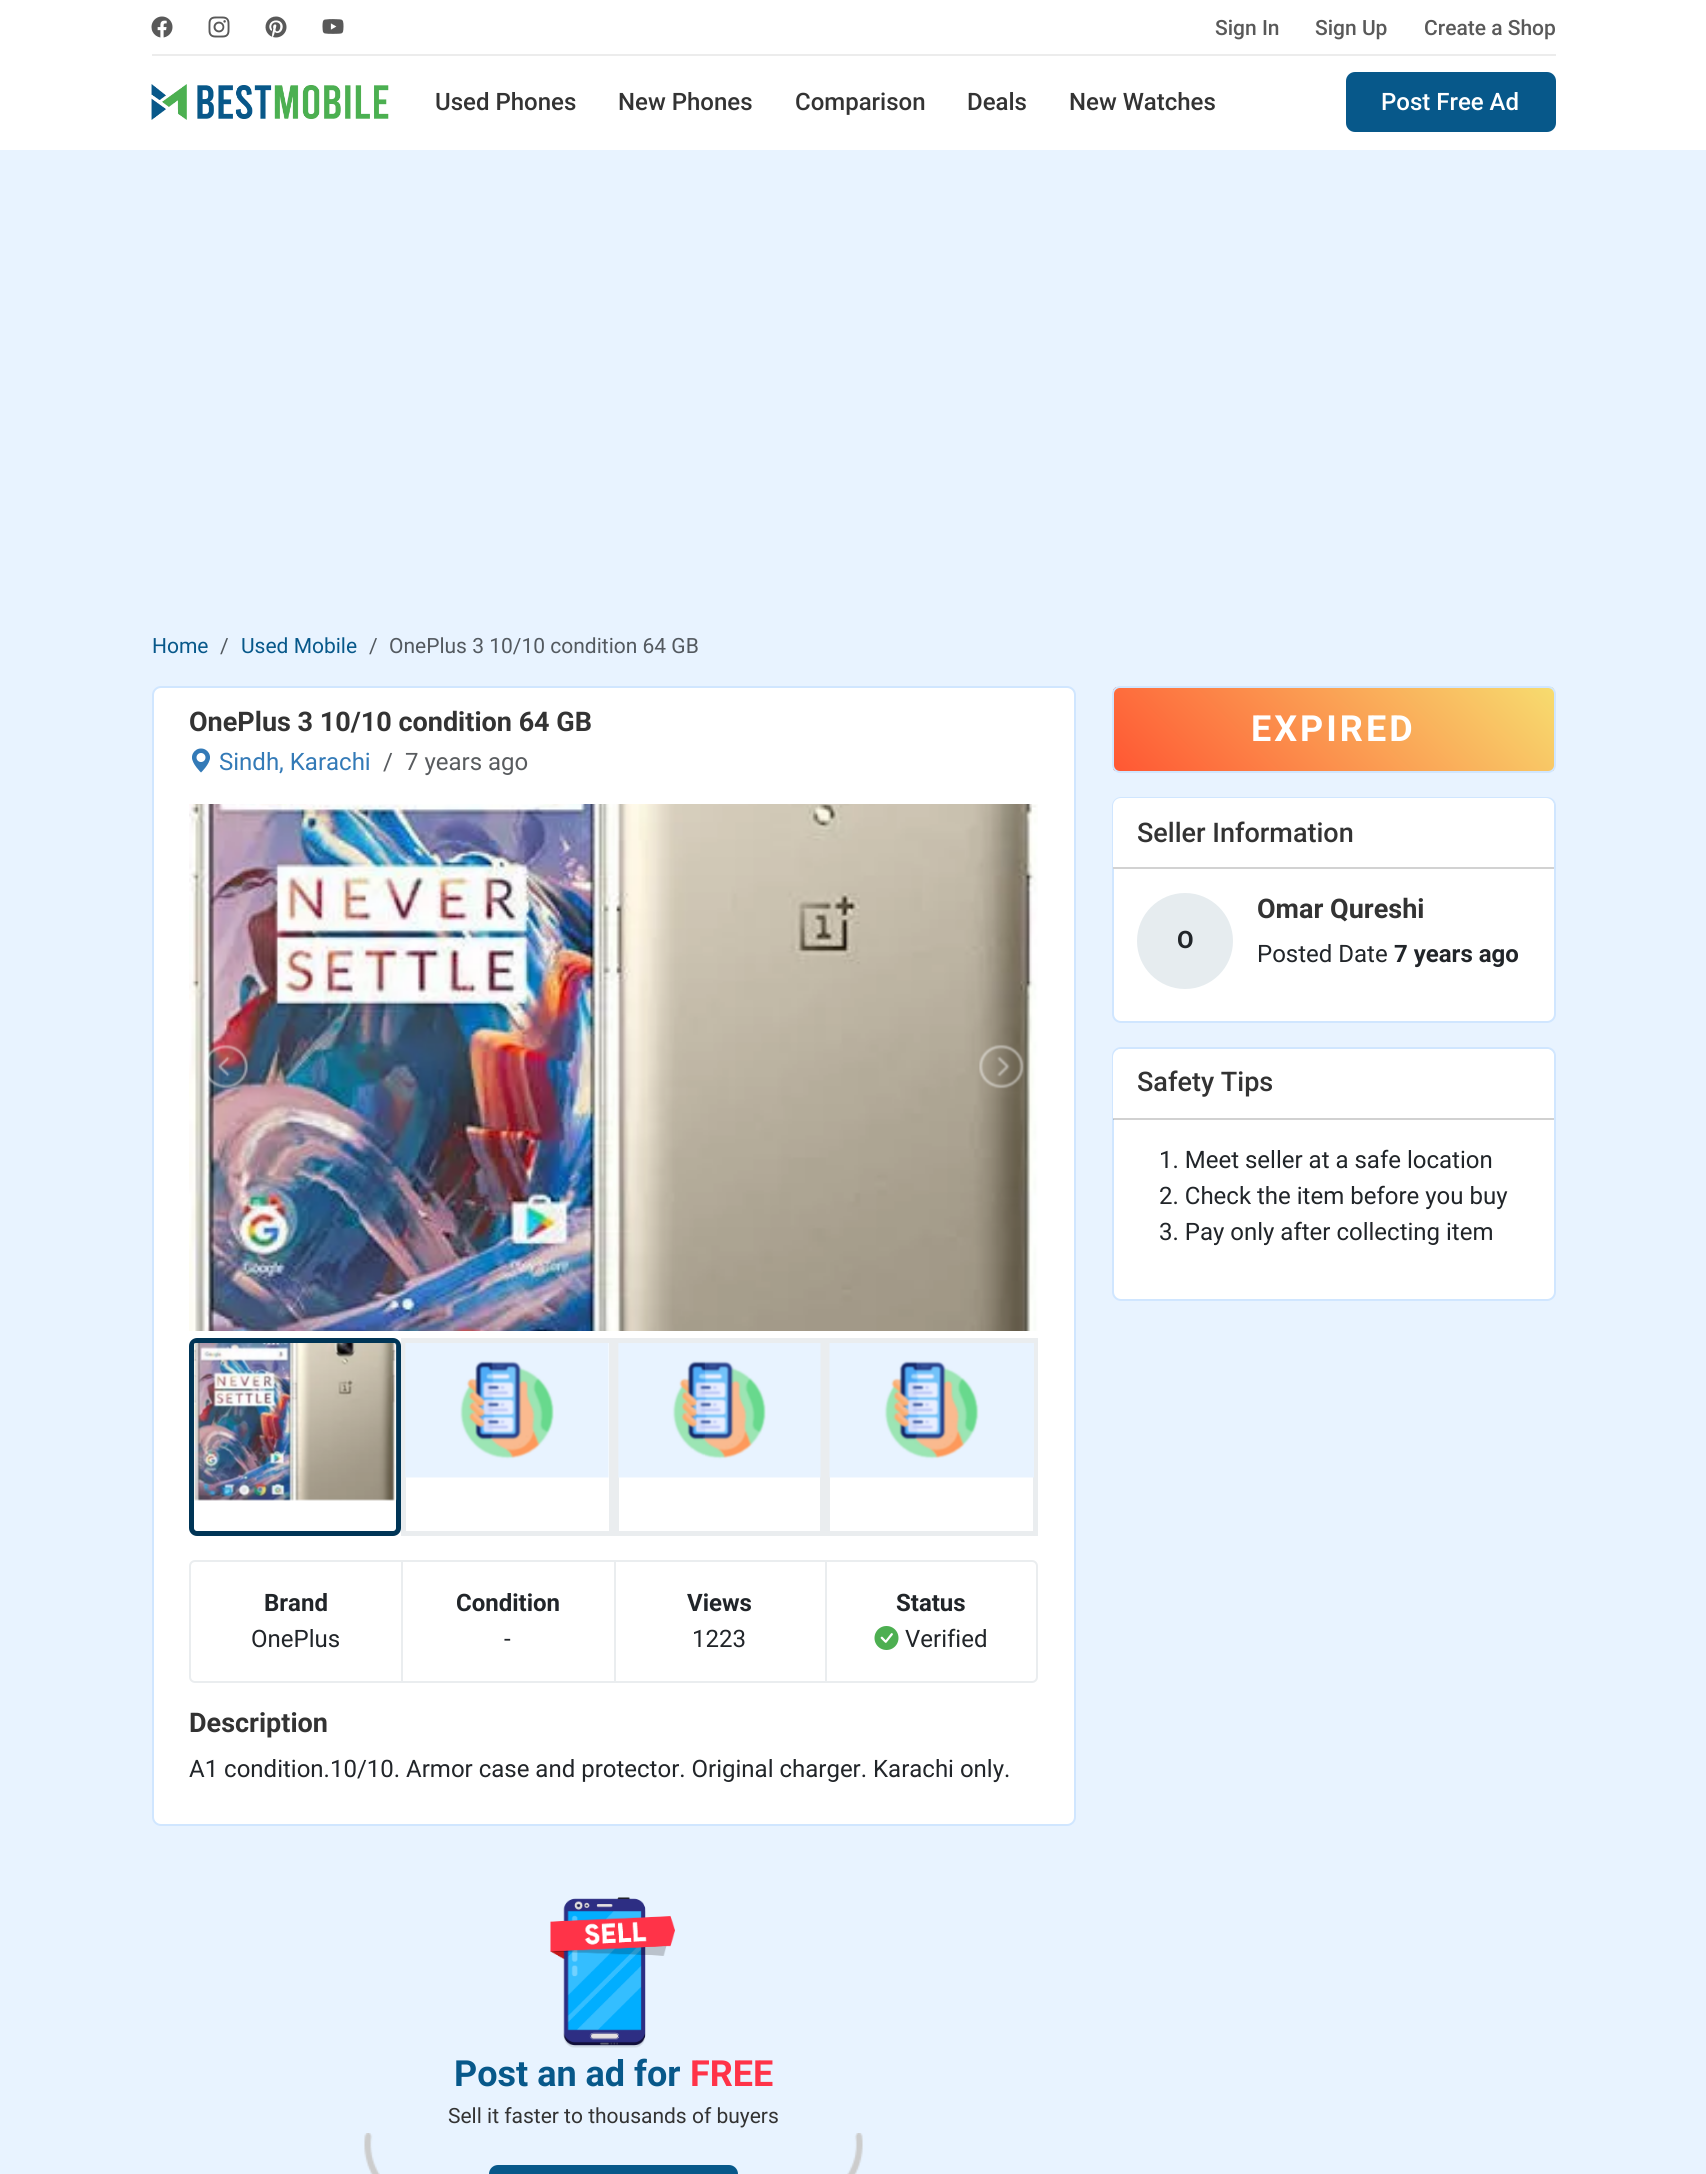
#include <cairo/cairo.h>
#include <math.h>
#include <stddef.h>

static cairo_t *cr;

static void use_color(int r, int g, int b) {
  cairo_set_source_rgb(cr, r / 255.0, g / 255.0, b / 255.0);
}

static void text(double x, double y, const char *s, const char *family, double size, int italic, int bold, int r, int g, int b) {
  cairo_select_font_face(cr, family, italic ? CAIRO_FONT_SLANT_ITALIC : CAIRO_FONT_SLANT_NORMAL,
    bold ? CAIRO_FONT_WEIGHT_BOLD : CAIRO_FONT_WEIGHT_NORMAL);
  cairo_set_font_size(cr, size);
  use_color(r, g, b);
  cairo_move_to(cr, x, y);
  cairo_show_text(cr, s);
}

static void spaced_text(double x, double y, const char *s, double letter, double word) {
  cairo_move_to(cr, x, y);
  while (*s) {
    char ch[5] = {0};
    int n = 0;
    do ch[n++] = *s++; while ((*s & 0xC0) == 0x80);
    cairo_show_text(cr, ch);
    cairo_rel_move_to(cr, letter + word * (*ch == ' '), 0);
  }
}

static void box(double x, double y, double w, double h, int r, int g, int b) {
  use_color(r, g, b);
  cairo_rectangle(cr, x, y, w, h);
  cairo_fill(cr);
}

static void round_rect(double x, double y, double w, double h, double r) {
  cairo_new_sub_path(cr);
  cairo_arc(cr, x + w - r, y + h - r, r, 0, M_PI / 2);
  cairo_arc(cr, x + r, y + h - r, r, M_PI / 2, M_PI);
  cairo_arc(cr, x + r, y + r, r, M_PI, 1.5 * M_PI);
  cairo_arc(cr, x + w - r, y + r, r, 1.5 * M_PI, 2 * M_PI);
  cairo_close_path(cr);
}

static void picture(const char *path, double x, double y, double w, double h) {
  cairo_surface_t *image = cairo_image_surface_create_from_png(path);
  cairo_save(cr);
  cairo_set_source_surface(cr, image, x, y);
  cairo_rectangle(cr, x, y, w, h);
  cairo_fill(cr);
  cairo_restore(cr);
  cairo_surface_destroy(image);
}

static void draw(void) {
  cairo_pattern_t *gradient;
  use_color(232, 243, 255);
  cairo_paint(cr);
  box(0, 0, 1706, 150, 255, 255, 255);
  use_color(236, 236, 236);
  cairo_new_path(cr);
  cairo_move_to(cr, 152, 54);
  cairo_line_to(cr, 152, 56);
  cairo_line_to(cr, 1556, 56);
  cairo_line_to(cr, 1556, 2);
  cairo_line_to(cr, 1556, 54);
  cairo_close_path(cr);
  cairo_fill(cr);
  picture("img_01.png", 151, 16, 22, 22);
  picture("img_02.png", 208, 16, 22, 22);
  picture("img_03.png", 265, 16, 22, 22);
  picture("img_04.png", 322, 19, 22, 15);
  picture("img_05.png", 151, 84, 238, 36);
  use_color(7, 88, 138);
  round_rect(1346, 72, 210, 60, 9);
  cairo_fill(cr);
  use_color(255, 255, 255);
  round_rect(153, 687, 922, 1138, 8);
  cairo_fill_preserve(cr);
  use_color(208, 230, 255);
  cairo_stroke(cr);
  picture("img_06.png", 192, 748, 18, 25);
  picture("img_07.png", 189, 804, 849, 527);
  picture("img_08.png", 204, 1044, 44, 45);
  picture("img_09.png", 979, 1044, 45, 45);
  round_rect(191.5, 1340.5, 207, 193, 5.5);
  use_color(0, 53, 86);
  cairo_set_line_width(cr, 5);
  cairo_stroke(cr);
  picture("img_10.png", 194, 1343, 203, 158);
  cairo_rectangle(cr, 403.5, 1340.5, 208, 193);
  use_color(234, 237, 239);
  cairo_stroke(cr);
  picture("img_11.png", 405, 1343, 204, 135);
  cairo_rectangle(cr, 616.5, 1340.5, 206, 193);
  cairo_stroke(cr);
  picture("img_12.png", 618, 1343, 203, 135);
  cairo_rectangle(cr, 827.5, 1340.5, 208, 193);
  cairo_stroke(cr);
  picture("img_13.png", 829, 1343, 205, 135);
  round_rect(190, 1561, 847, 121, 5);
  cairo_set_line_width(cr, 2);
  cairo_stroke(cr);
  box(401, 1562, 2, 120, 234, 237, 239);
  box(614, 1562, 2, 120, 234, 237, 239);
  box(825, 1562, 2, 120, 234, 237, 239);
  picture("img_14.png", 874, 1626, 25, 24);
  picture("img_15.png", 550, 1897, 125, 151);
  picture("img_16.png", 364, 2133, 16, 41);
  use_color(7, 88, 138);
  round_rect(490, 2166, 247, 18, 8);
  cairo_fill_preserve(cr);
  cairo_stroke(cr);
  picture("img_17.png", 847, 2133, 16, 41);
  cairo_save(cr);
  round_rect(1112, 686, 444, 87, 8);
  cairo_clip(cr);
  gradient = cairo_pattern_create_linear(1202, 860, 1465, 598);
  cairo_pattern_add_color_stop_rgba(gradient, 0, 1, 0.341, 0.2, 1);
  cairo_pattern_add_color_stop_rgba(gradient, 1, 0.969, 0.863, 0.435, 1);
  cairo_set_source(cr, gradient);
  cairo_pattern_destroy(gradient);
  cairo_rectangle(cr, 1113, 687, 441, 84);
  cairo_fill(cr);
  cairo_restore(cr);
  round_rect(1113, 687, 442, 85, 7);
  use_color(208, 230, 255);
  cairo_stroke(cr);
  use_color(255, 255, 255);
  round_rect(1113, 798, 442, 224, 8);
  cairo_fill_preserve(cr);
  use_color(208, 230, 255);
  cairo_stroke(cr);
  use_color(255, 255, 255);
  cairo_new_path(cr);
  cairo_move_to(cr, 1121, 798);
  cairo_line_to(cr, 1546, 798);
  cairo_curve_to(cr, 1550.5, 798, 1554, 801.5, 1554, 806);
  cairo_line_to(cr, 1554, 869);
  cairo_line_to(cr, 1113, 869);
  cairo_line_to(cr, 1113, 806);
  cairo_curve_to(cr, 1113, 801.5, 1116.5, 798, 1121, 798);
  cairo_close_path(cr);
  cairo_fill(cr);
  box(1113, 867, 441, 2, 210, 210, 210);
  use_color(230, 236, 239);
  cairo_arc(cr, 1185, 941, 48, 0, 2 * M_PI);
  cairo_fill(cr);
  use_color(255, 255, 255);
  round_rect(1113, 1048, 442, 252, 8);
  cairo_fill_preserve(cr);
  use_color(208, 230, 255);
  cairo_stroke(cr);
  use_color(255, 255, 255);
  cairo_new_path(cr);
  cairo_move_to(cr, 1121, 1049);
  cairo_line_to(cr, 1546, 1049);
  cairo_curve_to(cr, 1550.5, 1049, 1554, 1052.5, 1554, 1057);
  cairo_line_to(cr, 1554, 1119);
  cairo_line_to(cr, 1113, 1119);
  cairo_line_to(cr, 1113, 1057);
  cairo_curve_to(cr, 1113, 1052.5, 1116.5, 1049, 1121, 1049);
  cairo_close_path(cr);
  cairo_fill(cr);
  cairo_set_source_rgba(cr, 0, 0, 0, 0.18);
  cairo_rectangle(cr, 1113, 1118, 441, 2);
  cairo_fill(cr);
  text(1215, 35, "Sign In", "Roboto Medium", 21, 0, 0, 89, 89, 89);
  text(1315, 35, "Sign Up", "Roboto Medium", 21, 0, 0, 89, 89, 89);
  text(1424, 35, "Create a Shop", "Roboto Medium", 21, 0, 0, 89, 89, 89);
  text(435, 110, "Used Phones", "Roboto Medium", 24, 0, 0, 51, 51, 51);
  text(618, 110, "New Phones", "Roboto Medium", 24, 0, 0, 51, 51, 51);
  text(795, 110, "Comparison", "Roboto Medium", 24, 0, 0, 51, 51, 51);
  text(967, 110, "Deals", "Roboto Medium", 24, 0, 0, 51, 51, 51);
  text(1069, 110, "New Watches", "Roboto Medium", 24, 0, 0, 51, 51, 51);
  text(1381, 110, "Post Free Ad", "Roboto Medium", 24, 0, 0, 255, 255, 255);
  text(152, 653, "Home", "Roboto", 21, 0, 0, 7, 88, 138);
  text(220, 653, "/", "Roboto", 21, 0, 0, 83, 89, 95);
  text(241, 653, "Used Mobile", "Roboto", 21, 0, 0, 7, 88, 138);
  text(369, 653, "/", "Roboto", 21, 0, 0, 83, 89, 95);
  text(389, 653, "OnePlus 3 10/10 condition 64 GB", "Roboto", 21, 0, 0, 83, 89, 95);
  text(189, 731, "OnePlus 3 10/10 condition 64 GB", "Roboto", 27, 0, 1, 51, 51, 51);
  text(219, 770, "Sindh, Karachi", "Roboto", 24, 0, 0, 51, 122, 183);
  text(383, 770, "/", "Roboto", 24, 0, 0, 89, 92, 95);
  text(405, 770, "7 years ago", "Roboto", 24, 0, 0, 89, 92, 95);
  text(264, 1611, "Brand", "Roboto", 24, 0, 1, 33, 37, 41);
  text(251, 1647, "OnePlus", "Roboto", 24, 0, 0, 33, 37, 41);
  text(456, 1611, "Condition", "Roboto", 24, 0, 1, 33, 37, 41);
  text(504, 1647, "-", "Roboto", 24, 0, 0, 33, 37, 41);
  text(687, 1611, "Views", "Roboto", 24, 0, 1, 33, 37, 41);
  text(692, 1647, "1223", "Roboto", 24, 0, 0, 33, 37, 41);
  text(896, 1611, "Status", "Roboto", 24, 0, 1, 33, 37, 41);
  text(905, 1647, "Verified", "Roboto", 24, 0, 0, 33, 37, 41);
  text(189, 1732, "Description", "Roboto", 27, 0, 1, 51, 51, 51);
  text(189, 1777, "A1 condition.10/10. Armor case and protector. Original charger. Karachi only.", "Roboto", 24, 0, 0, 33, 37, 41);
  text(454, 2086, "Post an ad for", "Roboto", 36, 0, 1, 7, 88, 138);
  text(690, 2086, "FREE", "Roboto", 36, 0, 1, 255, 51, 72);
  text(448, 2123, "Sell it faster to thousands of buyers", "Roboto", 21, 0, 0, 51, 51, 51);
  cairo_select_font_face(cr, "Roboto", CAIRO_FONT_SLANT_NORMAL, CAIRO_FONT_WEIGHT_BOLD);
  cairo_set_font_size(cr, 36);
  use_color(255, 255, 255);
  spaced_text(1251, 741, "EXPIRED", 3, 0);
  text(1137, 842, "Seller Information", "Roboto Medium", 27, 0, 0, 51, 51, 51);
  text(1177, 948, "O", "Roboto", 24, 0, 1, 33, 37, 41);
  text(1257, 918, "Omar Qureshi", "Roboto", 27, 0, 1, 51, 51, 51);
  text(1257, 962, "Posted Date", "Roboto", 24, 0, 0, 33, 37, 41);
  text(1394, 962, "7 years ago", "Roboto", 24, 0, 1, 33, 37, 41);
  text(1137, 1091, "Safety Tips", "Roboto Medium", 27, 0, 0, 51, 51, 51);
  text(1159, 1168, "1. Meet seller at a safe location", "Roboto", 24, 0, 0, 33, 37, 41);
  text(1159, 1204, "2. Check the item before you buy", "Roboto", 24, 0, 0, 33, 37, 41);
  text(1159, 1240, "3. Pay only after collecting item", "Roboto", 24, 0, 0, 33, 37, 41);
}

int main(void) {
  cairo_surface_t *surface = cairo_image_surface_create(CAIRO_FORMAT_RGB24, 1706, 2174);
  cr = cairo_create(surface);
  cairo_font_options_t *options = cairo_font_options_create();
  cairo_font_options_set_hint_metrics(options, CAIRO_HINT_METRICS_OFF);
  cairo_font_options_set_hint_style(options, CAIRO_HINT_STYLE_NONE);
  cairo_set_font_options(cr, options);
  cairo_set_miter_limit(cr, 4);
  draw();
  cairo_surface_write_to_png(surface, "out.png");
  cairo_font_options_destroy(options);
  cairo_destroy(cr);
  cairo_surface_destroy(surface);
  return 0;
}
